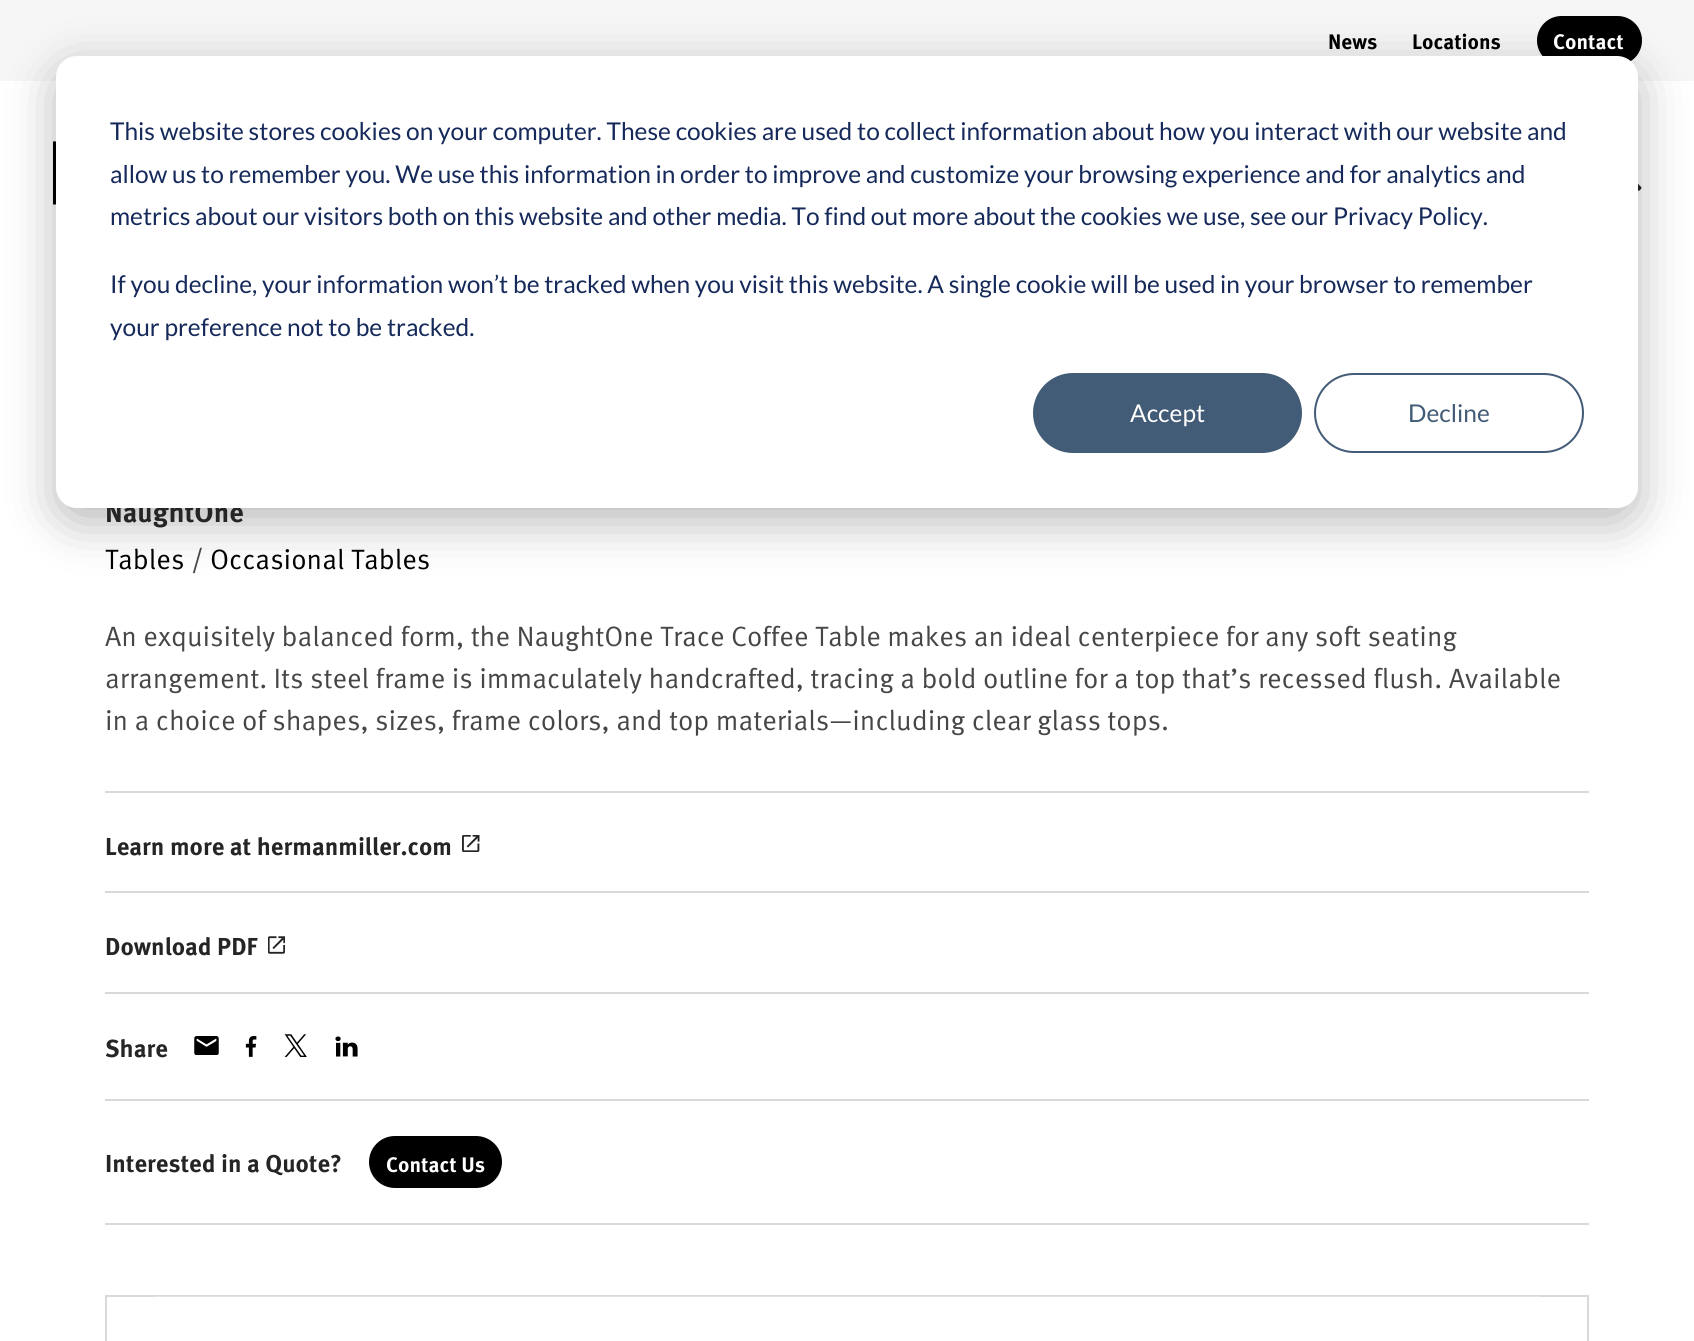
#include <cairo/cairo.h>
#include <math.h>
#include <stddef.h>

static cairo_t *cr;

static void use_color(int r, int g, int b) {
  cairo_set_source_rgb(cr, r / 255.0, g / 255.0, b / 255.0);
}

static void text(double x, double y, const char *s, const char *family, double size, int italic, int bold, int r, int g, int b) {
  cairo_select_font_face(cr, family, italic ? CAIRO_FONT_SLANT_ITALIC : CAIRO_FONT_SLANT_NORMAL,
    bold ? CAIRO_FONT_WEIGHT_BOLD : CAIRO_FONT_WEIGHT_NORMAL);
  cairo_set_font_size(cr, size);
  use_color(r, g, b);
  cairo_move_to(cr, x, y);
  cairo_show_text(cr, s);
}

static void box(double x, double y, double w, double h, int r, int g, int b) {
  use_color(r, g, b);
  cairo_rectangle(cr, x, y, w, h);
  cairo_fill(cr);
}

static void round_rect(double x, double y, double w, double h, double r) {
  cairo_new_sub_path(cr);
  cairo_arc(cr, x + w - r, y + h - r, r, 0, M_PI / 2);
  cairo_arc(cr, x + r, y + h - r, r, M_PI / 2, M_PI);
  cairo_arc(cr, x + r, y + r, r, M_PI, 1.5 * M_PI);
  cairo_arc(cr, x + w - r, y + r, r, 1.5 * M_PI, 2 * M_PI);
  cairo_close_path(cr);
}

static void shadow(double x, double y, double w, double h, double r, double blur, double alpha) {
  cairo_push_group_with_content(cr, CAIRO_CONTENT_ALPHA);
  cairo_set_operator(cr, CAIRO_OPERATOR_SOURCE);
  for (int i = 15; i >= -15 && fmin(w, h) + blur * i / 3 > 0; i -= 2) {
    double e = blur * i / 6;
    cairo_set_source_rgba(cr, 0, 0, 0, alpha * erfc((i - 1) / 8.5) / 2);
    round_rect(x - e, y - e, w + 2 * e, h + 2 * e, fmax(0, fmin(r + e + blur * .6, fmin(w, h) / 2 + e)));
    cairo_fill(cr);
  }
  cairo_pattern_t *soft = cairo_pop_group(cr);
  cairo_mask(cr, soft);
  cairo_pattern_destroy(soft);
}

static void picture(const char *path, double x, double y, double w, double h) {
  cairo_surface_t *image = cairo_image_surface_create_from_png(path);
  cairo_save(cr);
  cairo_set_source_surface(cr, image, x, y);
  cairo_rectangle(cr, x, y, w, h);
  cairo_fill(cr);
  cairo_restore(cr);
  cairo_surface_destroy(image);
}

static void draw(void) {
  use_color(255, 255, 255);
  cairo_paint(cr);
  box(0, 0, 1694, 81, 246, 246, 246);
  use_color(0, 0, 0);
  round_rect(1537, 16, 105, 49, 24.5);
  cairo_fill(cr);
  picture("img_01.png", 53, 141, 3, 64);
  picture("img_02.png", 1638, 184, 4, 7);
  box(105, 1223, 1484, 2, 217, 217, 217);
  box(105, 791, 1484, 2, 217, 217, 217);
  picture("img_03.png", 462, 835, 18, 17);
  box(105, 891, 1484, 2, 217, 217, 217);
  picture("img_04.png", 268, 936, 17, 18);
  box(105, 992, 1484, 2, 217, 217, 217);
  picture("img_05.png", 194, 1036, 25, 19);
  picture("img_06.png", 245, 1036, 12, 21);
  picture("img_07.png", 284, 1034, 23, 23);
  picture("img_08.png", 335, 1036, 23, 21);
  box(105, 1099, 1484, 2, 217, 217, 217);
  use_color(0, 0, 0);
  round_rect(369, 1136, 133, 52, 26);
  cairo_fill(cr);
  cairo_rectangle(cr, 106, 1296, 1482, 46);
  use_color(217, 217, 217);
  cairo_stroke(cr);
  box(154, 1296, 1386, 1, 227, 227, 227);
  use_color(0, 0, 0);
  shadow(56, 70, 1582, 452, 21, 24.5, 0.28);
  text(1328, 49, "News", "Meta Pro", 21, 0, 1, 0, 0, 0);
  text(1412, 49, "Locations", "Meta Pro", 21, 0, 1, 0, 0, 0);
  text(1553, 49, "Contact", "Meta Pro", 21, 0, 1, 255, 255, 255);
  text(105, 522, "NaughtOne", "Meta Pro", 28, 0, 1, 37, 37, 37);
  text(105, 569, "Tables", "Meta Pro", 28, 0, 0, 0, 0, 0);
  text(191, 569, "/", "Meta Pro", 28, 0, 0, 70, 70, 70);
  text(210, 569, "Occasional Tables", "Meta Pro", 28, 0, 0, 0, 0, 0);
  text(105, 646, "An exquisitely balanced form, the NaughtOne Trace Coffee Table makes an ideal centerpiece for any soft seating", "Meta Pro", 28, 0, 0, 70, 70, 70);
  text(105, 688, "arrangement. Its steel frame is immaculately handcrafted, tracing a bold outline for a top that’s recessed flush. Available", "Meta Pro", 28, 0, 0, 70, 70, 70);
  text(105, 730, "in a choice of shapes, sizes, frame colors, and top materials—including clear glass tops.", "Meta Pro", 28, 0, 0, 70, 70, 70);
  text(105, 855, "Learn more at hermanmiller.com", "Meta Pro", 24.5, 0, 1, 37, 37, 37);
  text(105, 955, "Download PDF", "Meta Pro", 24.5, 0, 1, 37, 37, 37);
  text(105, 1057, "Share", "Meta Pro", 24.5, 0, 1, 37, 37, 37);
  text(105, 1172, "Interested in a Quote?", "Meta Pro", 24.5, 0, 1, 37, 37, 37);
  text(386, 1172, "Contact Us", "Meta Pro", 21, 0, 1, 255, 255, 255);
  round_rect(56, 56, 1582, 452, 21);
  cairo_fill(cr);
  text(110, 140, "This website stores cookies on your computer. These cookies are used to collect information about how you interact with our website and", "Lato", 24.5, 0, 0, 21, 41, 90);
  text(110, 183, "allow us to remember you. We use this information in order to improve and customize your browsing experience and for analytics and", "Lato", 24.5, 0, 0, 21, 41, 90);
  text(110, 225, "metrics about our visitors both on this website and other media. To find out more about the cookies we use, see our Privacy Policy.", "Lato", 24.5, 0, 0, 21, 41, 90);
  text(110, 293, "If you decline, your information won’t be tracked when you visit this website. A single cookie will be used in your browser to remember", "Lato", 24.5, 0, 0, 21, 41, 90);
  text(110, 336, "your preference not to be tracked.", "Lato", 24.5, 0, 0, 21, 41, 90);
  use_color(66, 91, 118);
  round_rect(1034, 374, 267, 78, 39);
  cairo_fill_preserve(cr);
  cairo_stroke(cr);
  text(1130, 422, "Accept", "Lato", 24.5, 0, 0, 255, 255, 255);
  round_rect(1315, 374, 268, 78, 39);
  use_color(66, 91, 118);
  cairo_stroke(cr);
  text(1408, 422, "Decline", "Lato", 24.5, 0, 0, 66, 91, 118);
}

int main(void) {
  cairo_surface_t *surface = cairo_image_surface_create(CAIRO_FORMAT_RGB24, 1694, 1341);
  cr = cairo_create(surface);
  cairo_font_options_t *options = cairo_font_options_create();
  cairo_font_options_set_hint_metrics(options, CAIRO_HINT_METRICS_OFF);
  cairo_font_options_set_hint_style(options, CAIRO_HINT_STYLE_NONE);
  cairo_set_font_options(cr, options);
  cairo_set_miter_limit(cr, 4);
  draw();
  cairo_surface_write_to_png(surface, "out.png");
  cairo_font_options_destroy(options);
  cairo_destroy(cr);
  cairo_surface_destroy(surface);
  return 0;
}
